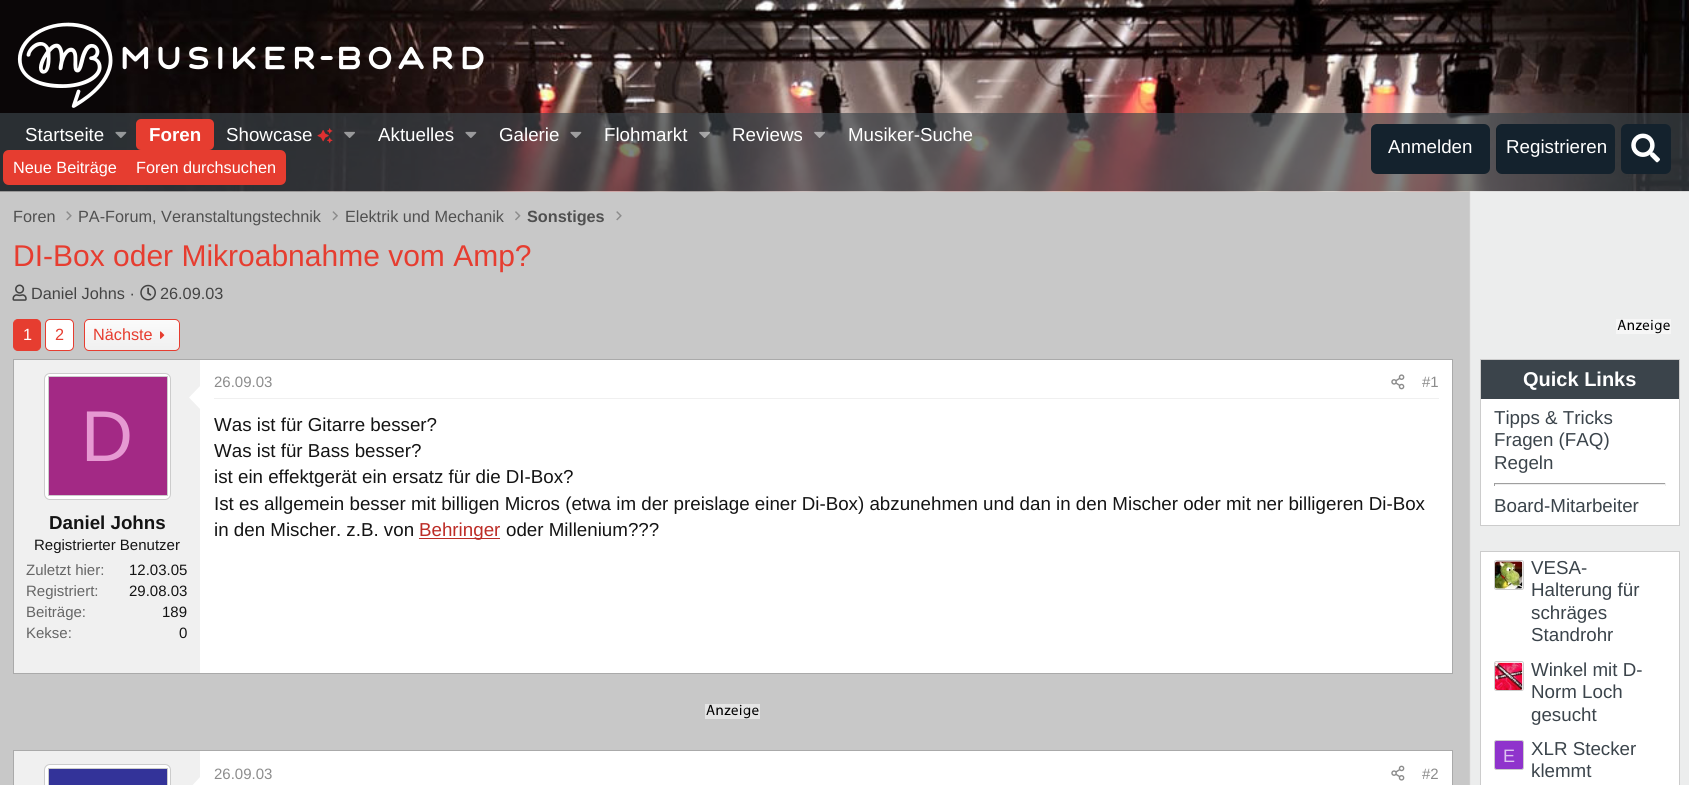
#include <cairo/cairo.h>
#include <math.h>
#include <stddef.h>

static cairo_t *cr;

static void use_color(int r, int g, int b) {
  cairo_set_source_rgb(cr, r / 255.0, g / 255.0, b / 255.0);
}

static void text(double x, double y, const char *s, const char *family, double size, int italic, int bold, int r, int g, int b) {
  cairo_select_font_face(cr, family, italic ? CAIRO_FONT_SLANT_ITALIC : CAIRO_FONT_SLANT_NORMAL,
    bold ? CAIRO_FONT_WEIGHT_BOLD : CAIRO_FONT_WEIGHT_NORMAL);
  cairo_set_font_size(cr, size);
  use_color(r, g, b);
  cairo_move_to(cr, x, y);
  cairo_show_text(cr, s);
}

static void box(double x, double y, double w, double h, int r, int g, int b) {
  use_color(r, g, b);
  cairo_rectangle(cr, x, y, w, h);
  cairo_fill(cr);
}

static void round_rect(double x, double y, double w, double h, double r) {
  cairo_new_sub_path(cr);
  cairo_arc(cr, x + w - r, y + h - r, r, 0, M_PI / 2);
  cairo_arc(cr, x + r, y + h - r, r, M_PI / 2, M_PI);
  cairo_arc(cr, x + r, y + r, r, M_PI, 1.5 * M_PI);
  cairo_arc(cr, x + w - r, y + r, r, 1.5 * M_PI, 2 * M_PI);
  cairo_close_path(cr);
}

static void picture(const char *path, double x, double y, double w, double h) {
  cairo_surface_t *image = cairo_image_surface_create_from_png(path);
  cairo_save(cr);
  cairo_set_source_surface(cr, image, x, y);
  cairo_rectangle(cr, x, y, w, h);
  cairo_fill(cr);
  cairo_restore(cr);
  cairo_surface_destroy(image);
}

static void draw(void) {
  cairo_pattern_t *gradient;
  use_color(200, 200, 200);
  cairo_paint(cr);
  picture("img_01.png", 0, 0, 1689, 192);
  picture("img_02.png", 17, 22, 467, 86);
  cairo_set_source_rgba(cr, 0.231, 0.267, 0.294, 0.66);
  cairo_rectangle(cr, 0, 113, 1689, 37);
  cairo_fill(cr);
  picture("img_03.png", 115, 131, 12, 7);
  use_color(230, 61, 48);
  round_rect(136, 119, 78, 31, 5);
  cairo_fill(cr);
  picture("img_04.png", 317, 128, 16, 16);
  picture("img_05.png", 344, 131, 11, 7);
  picture("img_06.png", 465, 131, 12, 7);
  picture("img_07.png", 570, 131, 12, 7);
  picture("img_08.png", 699, 131, 11, 7);
  picture("img_09.png", 814, 131, 11, 7);
  cairo_set_source_rgba(cr, 0.231, 0.267, 0.294, 0.66);
  cairo_rectangle(cr, 0, 150, 1689, 41);
  cairo_fill(cr);
  use_color(20, 34, 45);
  round_rect(1371, 124, 119, 50, 6);
  cairo_fill(cr);
  round_rect(1496, 124, 119, 50, 6);
  cairo_fill(cr);
  cairo_set_source_rgba(cr, 0.078, 0.078, 0.078, 0.15);
  cairo_rectangle(cr, 1496, 128, 1, 43);
  cairo_fill(cr);
  use_color(20, 34, 45);
  round_rect(1621, 124, 50, 50, 6);
  cairo_fill(cr);
  picture("img_10.png", 1631, 133, 29, 30);
  use_color(230, 61, 48);
  cairo_new_path(cr);
  cairo_move_to(cr, 9, 150);
  cairo_line_to(cr, 126, 150);
  cairo_line_to(cr, 126, 185);
  cairo_line_to(cr, 9, 185);
  cairo_curve_to(cr, 5.5, 185, 3, 182.5, 3, 179);
  cairo_line_to(cr, 3, 156);
  cairo_curve_to(cr, 3, 152.5, 5.5, 150, 9, 150);
  cairo_close_path(cr);
  cairo_fill(cr);
  cairo_new_path(cr);
  cairo_move_to(cr, 126, 150);
  cairo_line_to(cr, 280, 150);
  cairo_curve_to(cr, 283.5, 150, 286, 152.5, 286, 156);
  cairo_line_to(cr, 286, 179);
  cairo_curve_to(cr, 286, 182.5, 283.5, 185, 280, 185);
  cairo_line_to(cr, 126, 185);
  cairo_close_path(cr);
  cairo_fill(cr);
  picture("img_11.png", 1469, 191, 220, 594);
  picture("img_12.png", 66, 211, 6, 10);
  picture("img_13.png", 332, 211, 6, 10);
  picture("img_14.png", 515, 211, 6, 10);
  picture("img_12.png", 616, 211, 6, 10);
  picture("img_15.png", 12, 284, 15, 17);
  picture("img_16.png", 140, 284, 16, 17);
  round_rect(13.5, 319.5, 27, 31, 4.5);
  cairo_fill_preserve(cr);
  cairo_set_line_width(cr, 1);
  cairo_stroke(cr);
  use_color(255, 255, 255);
  round_rect(45.5, 319.5, 28, 31, 4.5);
  cairo_fill_preserve(cr);
  use_color(230, 61, 48);
  cairo_stroke(cr);
  cairo_save(cr);
  round_rect(84, 319, 96, 32, 5);
  cairo_clip(cr);
  gradient = cairo_pattern_create_linear(132, 350, 132, 320);
  cairo_pattern_add_color_stop_rgba(gradient, 0, 0.941, 0.941, 0.941, 1);
  cairo_pattern_add_color_stop_rgba(gradient, 1, 0.984, 0.984, 0.984, 1);
  cairo_set_source(cr, gradient);
  cairo_pattern_destroy(gradient);
  cairo_rectangle(cr, 84, 320, 96, 30);
  cairo_fill(cr);
  cairo_restore(cr);
  round_rect(84.5, 319.5, 95, 31, 4.5);
  cairo_stroke(cr);
  picture("img_17.png", 160, 331, 5, 8);
  box(201, 360, 1251, 313, 255, 255, 255);
  cairo_rectangle(cr, 13.5, 359.5, 1439, 314);
  use_color(170, 170, 170);
  cairo_stroke(cr);
  box(14, 360, 186, 313, 240, 240, 240);
  box(200, 360, 1, 313, 255, 255, 255);
  cairo_new_path(cr);
  cairo_move_to(cr, 201, 385);
  cairo_line_to(cr, 201, 410);
  cairo_line_to(cr, 189, 397.5);
  cairo_close_path(cr);
  cairo_fill(cr);
  round_rect(44.5, 373.5, 126, 126, 5.5);
  cairo_fill_preserve(cr);
  use_color(204, 204, 204);
  cairo_stroke(cr);
  use_color(163, 41, 133);
  cairo_rectangle(cr, 48.5, 376.5, 119, 119);
  cairo_fill_preserve(cr);
  use_color(204, 204, 204);
  cairo_stroke(cr);
  box(214, 398, 1225, 1, 240, 240, 240);
  picture("img_18.png", 1391, 374, 14, 16);
  box(419, 538, 81, 1, 188, 44, 38);
  picture("img_19.png", 705, 704, 55, 15);
  box(201, 751, 1251, 34, 255, 255, 255);
  cairo_rectangle(cr, 13.5, 750.5, 1439, 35);
  use_color(170, 170, 170);
  cairo_stroke(cr);
  box(14, 751, 186, 34, 240, 240, 240);
  box(200, 751, 1, 34, 255, 255, 255);
  round_rect(44.5, 764.5, 126, 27, 5.5);
  cairo_fill_preserve(cr);
  use_color(204, 204, 204);
  cairo_stroke(cr);
  use_color(51, 51, 153);
  cairo_rectangle(cr, 48.5, 768.5, 119, 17);
  cairo_fill_preserve(cr);
  use_color(204, 204, 204);
  cairo_stroke(cr);
  use_color(255, 255, 255);
  cairo_new_path(cr);
  cairo_move_to(cr, 201, 776);
  cairo_line_to(cr, 201, 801);
  cairo_line_to(cr, 189, 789);
  cairo_close_path(cr);
  cairo_fill(cr);
  picture("img_20.png", 1391, 765, 14, 16);
  picture("img_21.png", 1616, 319, 55, 15);
  box(1481, 399, 198, 126, 255, 255, 255);
  cairo_rectangle(cr, 1480.5, 359.5, 199, 166);
  use_color(204, 204, 204);
  cairo_stroke(cr);
  box(1481, 360, 198, 39, 59, 68, 75);
  box(1494, 483, 172, 1, 159, 159, 159);
  box(1665, 483, 1, 3, 238, 238, 238);
  box(1494, 484, 172, 1, 238, 238, 238);
  box(1494, 483, 1, 3, 159, 159, 159);
  use_color(255, 255, 255);
  cairo_rectangle(cr, 1480.5, 551.5, 199, 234);
  cairo_fill_preserve(cr);
  use_color(204, 204, 204);
  cairo_stroke(cr);
  round_rect(1494.5, 560.5, 29, 29, 2);
  cairo_stroke(cr);
  use_color(255, 255, 255);
  round_rect(1495, 561, 28, 28, 2.5);
  cairo_fill(cr);
  picture("img_22.png", 1495, 561, 28, 28);
  round_rect(1494.5, 661.5, 29, 29, 2);
  use_color(204, 204, 204);
  cairo_stroke(cr);
  use_color(255, 255, 255);
  round_rect(1495, 663, 28, 27, 2.5);
  cairo_fill(cr);
  picture("img_23.png", 1495, 662, 28, 28);
  use_color(143, 51, 204);
  round_rect(1494.5, 740.5, 29, 29, 2);
  cairo_fill_preserve(cr);
  use_color(204, 204, 204);
  cairo_stroke(cr);
  text(25, 141, "Startseite", "Liberation Sans", 18.75, 0, 0, 255, 255, 255);
  text(149, 141, "Foren", "Liberation Sans", 18.75, 0, 1, 255, 255, 255);
  text(226, 141, "Showcase", "Liberation Sans", 18.75, 0, 0, 255, 255, 255);
  text(378, 141, "Aktuelles", "Liberation Sans", 18.75, 0, 0, 255, 255, 255);
  text(499, 141, "Galerie", "Liberation Sans", 18.75, 0, 0, 255, 255, 255);
  text(604, 141, "Flohmarkt", "Liberation Sans", 18.75, 0, 0, 255, 255, 255);
  text(732, 141, "Reviews", "Liberation Sans", 18.75, 0, 0, 255, 255, 255);
  text(848, 141, "Musiker-Suche", "Liberation Sans", 18.75, 0, 0, 255, 255, 255);
  text(1388, 153, "Anmelden", "Liberation Sans", 18.75, 0, 0, 255, 255, 255);
  text(1506, 153, "Registrieren", "Liberation Sans", 18.75, 0, 0, 255, 255, 255);
  text(13, 173, "Neue Beiträge", "Liberation Sans", 16.25, 0, 0, 255, 255, 255);
  text(136, 173, "Foren durchsuchen", "Liberation Sans", 16.25, 0, 0, 255, 255, 255);
  text(13, 222, "Foren", "Liberation Sans", 16.25, 0, 0, 80, 80, 80);
  text(78, 222, "PA-Forum, Veranstaltungstechnik", "Liberation Sans", 16.25, 0, 0, 80, 80, 80);
  text(345, 222, "Elektrik und Mechanik", "Liberation Sans", 16.25, 0, 0, 80, 80, 80);
  text(527, 222, "Sonstiges", "Liberation Sans", 16.25, 0, 1, 80, 80, 80);
  text(13, 266, "DI-Box oder Mikroabnahme vom Amp?", "Liberation Sans", 30, 0, 0, 230, 61, 48);
  text(31, 299, "Daniel Johns ·", "Liberation Sans", 16.25, 0, 0, 68, 68, 68);
  text(160, 299, "26.09.03", "Liberation Sans", 16.25, 0, 0, 68, 68, 68);
  text(23, 340, "1", "Liberation Sans", 16.25, 0, 0, 255, 255, 255);
  text(55, 340, "2", "Liberation Sans", 16.25, 0, 0, 230, 61, 48);
  text(93, 340, "Nächste", "Liberation Sans", 16.25, 0, 0, 230, 61, 48);
  text(81, 461, "D", "Liberation Sans", 72, 0, 0, 230, 153, 210);
  text(49, 529, "Daniel Johns", "Liberation Sans", 18.75, 0, 1, 20, 20, 20);
  text(34, 550, "Registrierter Benutzer", "Liberation Sans", 15, 0, 0, 20, 20, 20);
  text(26, 575, "Zuletzt hier:", "Liberation Sans", 15, 0, 0, 102, 102, 102);
  text(129, 575, "12.03.05", "Liberation Sans", 15, 0, 0, 20, 20, 20);
  text(26, 596, "Registriert:", "Liberation Sans", 15, 0, 0, 102, 102, 102);
  text(129, 596, "29.08.03", "Liberation Sans", 15, 0, 0, 20, 20, 20);
  text(26, 617, "Beiträge:", "Liberation Sans", 15, 0, 0, 102, 102, 102);
  text(162, 617, "189", "Liberation Sans", 15, 0, 0, 20, 20, 20);
  text(26, 638, "Kekse:", "Liberation Sans", 15, 0, 0, 102, 102, 102);
  text(179, 638, "0", "Liberation Sans", 15, 0, 0, 20, 20, 20);
  text(214, 387, "26.09.03", "Liberation Sans", 15, 0, 0, 140, 140, 140);
  text(1422, 387, "#1", "Liberation Sans", 15, 0, 0, 140, 140, 140);
  text(214, 431, "Was ist für Gitarre besser?", "Liberation Sans", 18.75, 0, 0, 20, 20, 20);
  text(214, 457, "Was ist für Bass besser?", "Liberation Sans", 18.75, 0, 0, 20, 20, 20);
  text(214, 483, "ist ein effektgerät ein ersatz für die DI-Box?", "Liberation Sans", 18.75, 0, 0, 20, 20, 20);
  text(214, 510, "Ist es allgemein besser mit billigen Micros (etwa im der preislage einer Di-Box) abzunehmen und dan in den Mischer oder mit ner billigeren Di-Box", "Liberation Sans", 18.75, 0, 0, 20, 20, 20);
  text(214, 536, "in den Mischer. z.B. von", "Liberation Sans", 18.75, 0, 0, 20, 20, 20);
  text(419, 536, "Behringer", "Liberation Sans", 18.75, 0, 0, 188, 44, 38);
  text(506, 536, "oder Millenium?\077?", "Liberation Sans", 18.75, 0, 0, 20, 20, 20);
  text(214, 779, "26.09.03", "Liberation Sans", 15, 0, 0, 140, 140, 140);
  text(1422, 779, "#2", "Liberation Sans", 15, 0, 0, 140, 140, 140);
  text(1523, 386, "Quick Links", "Liberation Sans", 20, 0, 1, 255, 255, 255);
  text(1494, 424, "Tipps & Tricks", "Liberation Sans", 18.75, 0, 0, 59, 68, 75);
  text(1494, 446, "Fragen (FAQ)", "Liberation Sans", 18.75, 0, 0, 59, 68, 75);
  text(1494, 469, "Regeln", "Liberation Sans", 18.75, 0, 0, 59, 68, 75);
  text(1494, 512, "Board-Mitarbeiter", "Liberation Sans", 18.75, 0, 0, 59, 68, 75);
  text(1531, 574, "VESA-", "Liberation Sans", 18.75, 0, 0, 59, 68, 75);
  text(1531, 596, "Halterung für", "Liberation Sans", 18.75, 0, 0, 59, 68, 75);
  text(1531, 619, "schräges", "Liberation Sans", 18.75, 0, 0, 59, 68, 75);
  text(1531, 641, "Standrohr", "Liberation Sans", 18.75, 0, 0, 59, 68, 75);
  text(1531, 676, "Winkel mit D-", "Liberation Sans", 18.75, 0, 0, 59, 68, 75);
  text(1531, 698, "Norm Loch", "Liberation Sans", 18.75, 0, 0, 59, 68, 75);
  text(1531, 721, "gesucht", "Liberation Sans", 18.75, 0, 0, 59, 68, 75);
  text(1503, 762, "E", "Liberation Sans", 18, 0, 0, 221, 194, 240);
  text(1531, 755, "XLR Stecker", "Liberation Sans", 18.75, 0, 0, 59, 68, 75);
  text(1531, 777, "klemmt", "Liberation Sans", 18.75, 0, 0, 59, 68, 75);
}

int main(void) {
  cairo_surface_t *surface = cairo_image_surface_create(CAIRO_FORMAT_RGB24, 1689, 785);
  cr = cairo_create(surface);
  cairo_font_options_t *options = cairo_font_options_create();
  cairo_font_options_set_hint_metrics(options, CAIRO_HINT_METRICS_OFF);
  cairo_font_options_set_hint_style(options, CAIRO_HINT_STYLE_NONE);
  cairo_set_font_options(cr, options);
  cairo_set_miter_limit(cr, 4);
  draw();
  cairo_surface_write_to_png(surface, "out.png");
  cairo_font_options_destroy(options);
  cairo_destroy(cr);
  cairo_surface_destroy(surface);
  return 0;
}
